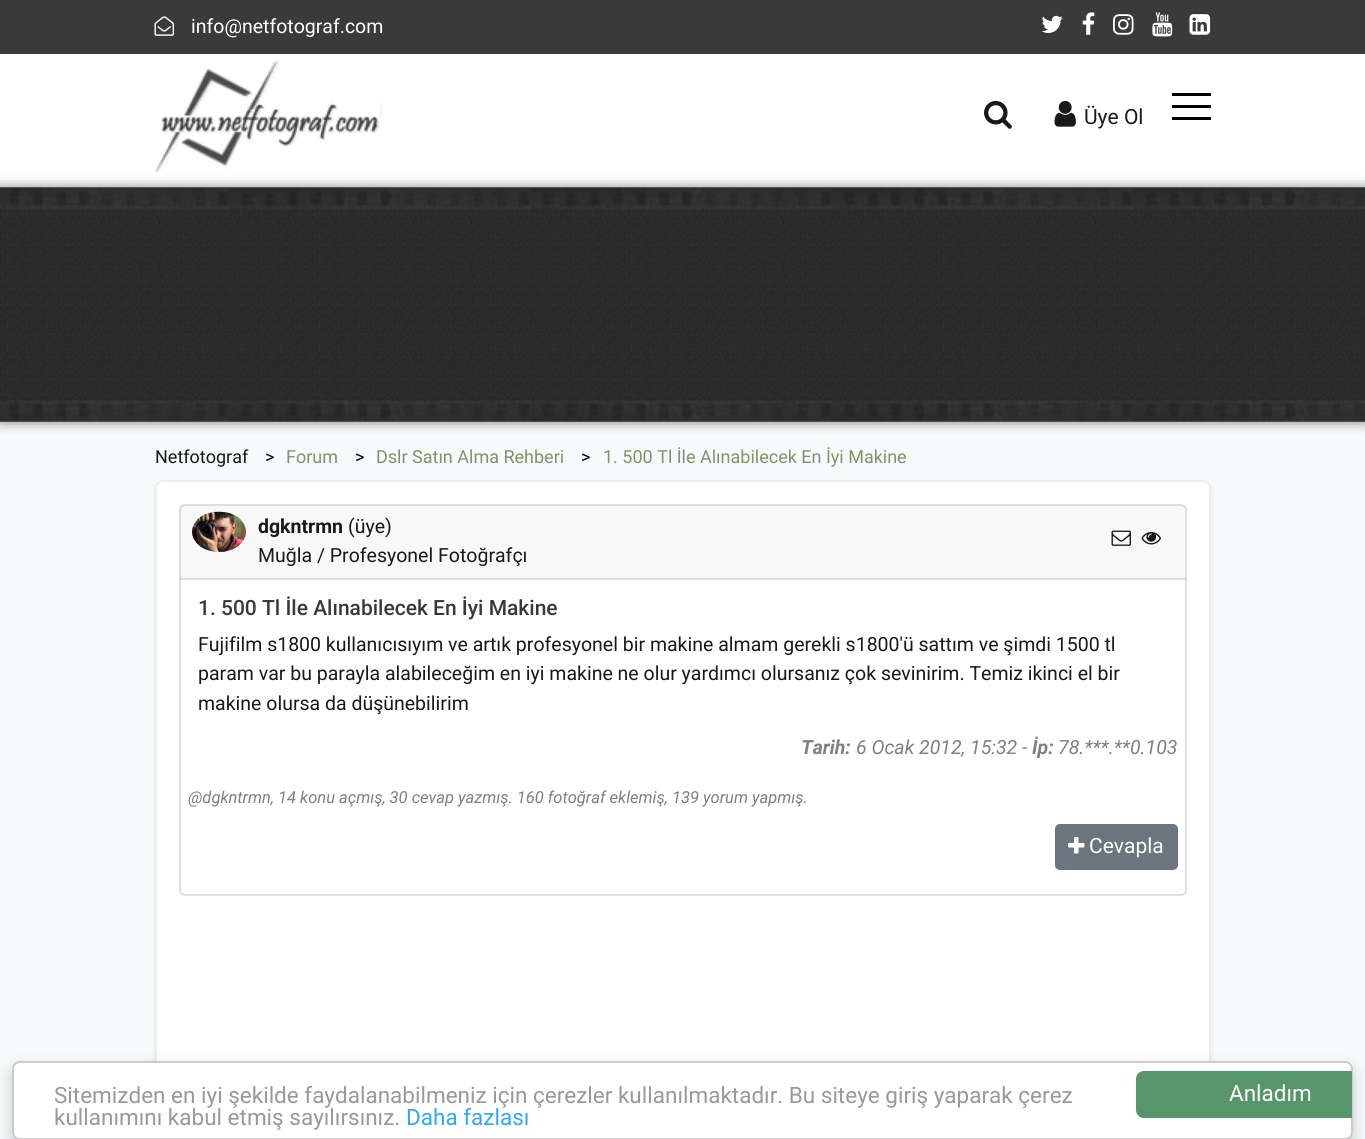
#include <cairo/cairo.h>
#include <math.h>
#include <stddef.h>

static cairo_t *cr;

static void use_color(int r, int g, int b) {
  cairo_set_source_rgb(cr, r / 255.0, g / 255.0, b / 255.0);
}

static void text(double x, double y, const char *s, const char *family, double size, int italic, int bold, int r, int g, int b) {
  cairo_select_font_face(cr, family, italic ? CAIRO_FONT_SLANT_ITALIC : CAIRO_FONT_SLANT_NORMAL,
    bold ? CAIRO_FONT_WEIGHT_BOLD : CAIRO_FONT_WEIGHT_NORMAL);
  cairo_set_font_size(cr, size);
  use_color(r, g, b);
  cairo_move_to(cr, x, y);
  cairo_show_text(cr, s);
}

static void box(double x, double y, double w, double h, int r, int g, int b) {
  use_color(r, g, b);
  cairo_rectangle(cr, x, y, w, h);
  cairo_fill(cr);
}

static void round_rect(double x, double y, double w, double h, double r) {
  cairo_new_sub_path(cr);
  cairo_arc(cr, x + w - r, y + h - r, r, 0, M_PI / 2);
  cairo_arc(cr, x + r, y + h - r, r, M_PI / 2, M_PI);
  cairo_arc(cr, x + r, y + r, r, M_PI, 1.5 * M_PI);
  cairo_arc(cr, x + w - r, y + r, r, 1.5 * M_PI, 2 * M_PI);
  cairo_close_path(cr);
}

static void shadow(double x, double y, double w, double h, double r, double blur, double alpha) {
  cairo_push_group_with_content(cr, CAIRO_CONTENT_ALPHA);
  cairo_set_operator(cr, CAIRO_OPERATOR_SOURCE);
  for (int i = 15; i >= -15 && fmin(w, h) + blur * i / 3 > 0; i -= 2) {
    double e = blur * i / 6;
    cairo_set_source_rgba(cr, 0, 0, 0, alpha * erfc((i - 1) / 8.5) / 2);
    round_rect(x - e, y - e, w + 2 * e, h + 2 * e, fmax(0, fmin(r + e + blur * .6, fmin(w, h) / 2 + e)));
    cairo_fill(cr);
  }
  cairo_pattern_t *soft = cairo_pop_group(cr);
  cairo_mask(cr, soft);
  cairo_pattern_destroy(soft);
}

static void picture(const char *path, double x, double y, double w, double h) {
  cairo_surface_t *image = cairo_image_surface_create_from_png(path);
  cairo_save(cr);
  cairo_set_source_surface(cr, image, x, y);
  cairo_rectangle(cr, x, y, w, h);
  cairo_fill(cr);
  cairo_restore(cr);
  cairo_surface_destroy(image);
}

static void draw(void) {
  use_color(246, 250, 251);
  cairo_paint(cr);
  box(0, 0, 1365, 54, 58, 58, 58);
  picture("img_01.png", 154, 16, 20, 20);
  picture("img_02.png", 1041, 15, 22, 18);
  picture("img_03.png", 1082, 12, 13, 23);
  picture("img_04.png", 1113, 14, 21, 21);
  picture("img_05.png", 1152, 12, 21, 25);
  picture("img_06.png", 1189, 14, 22, 21);
  box(0, 54, 1365, 126, 255, 255, 255);
  use_color(0, 0, 0);
  shadow(0, 188, 1365, 234, 0, 6, 0.5);
  picture("img_07.png", 155, 61, 228, 112);
  picture("img_08.png", 984, 100, 28, 29);
  picture("img_09.png", 1054, 100, 22, 27);
  box(1172, 105, 39, 3, 0, 0, 0);
  box(1172, 93, 39, 3, 0, 0, 0);
  box(1172, 117, 39, 3, 0, 0, 0);
  picture("img_10.png", 0, 187, 1365, 235);
  use_color(0, 0, 0);
  shadow(155, 483, 1056, 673, 8, 3, 0.07);
  use_color(255, 255, 255);
  round_rect(156, 481, 1054, 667, 7);
  cairo_fill_preserve(cr);
  use_color(237, 237, 237);
  cairo_stroke(cr);
  round_rect(180, 505, 1006, 390, 5);
  use_color(223, 223, 223);
  cairo_stroke(cr);
  cairo_set_source_rgba(cr, 0, 0, 0, 0.03);
  cairo_rectangle(cr, 180, 506, 1005, 73);
  cairo_fill(cr);
  cairo_set_source_rgba(cr, 0, 0, 0, 0.12);
  cairo_rectangle(cr, 180, 578, 1005, 2);
  cairo_fill(cr);
  picture("img_11.png", 192, 511, 54, 41);
  picture("img_12.png", 1111, 530, 20, 16);
  picture("img_13.png", 1141, 532, 20, 13);
  use_color(108, 117, 125);
  round_rect(1056, 825, 121, 44, 4);
  cairo_fill_preserve(cr);
  cairo_stroke(cr);
  picture("img_14.png", 1068, 837, 17, 17);
  use_color(0, 0, 0);
  shadow(12, 1068, 1341, 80, 8, 7.5, 0.2);
  use_color(255, 255, 255);
  round_rect(13, 1062, 1339, 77, 7);
  cairo_fill_preserve(cr);
  use_color(204, 204, 204);
  cairo_stroke(cr);
  use_color(87, 149, 106);
  cairo_new_path(cr);
  cairo_move_to(cr, 1144, 1071);
  cairo_line_to(cr, 1352, 1071);
  cairo_line_to(cr, 1352, 1118);
  cairo_line_to(cr, 1144, 1118);
  cairo_curve_to(cr, 1139.5, 1118, 1136, 1114.5, 1136, 1110);
  cairo_line_to(cr, 1136, 1079);
  cairo_curve_to(cr, 1136, 1074.5, 1139.5, 1071, 1144, 1071);
  cairo_close_path(cr);
  cairo_fill(cr);
  text(191, 33, "info@netfotograf.com", "Roboto", 19.5, 0, 0, 255, 255, 255);
  text(1084, 124, "Üye Ol", "Roboto", 21, 0, 0, 25, 25, 25);
  text(155, 463, "Netfotograf", "Roboto", 18, 0, 0, 25, 25, 25);
  text(265, 463, ">", "Roboto", 18, 0, 0, 0, 0, 0);
  text(286, 463, "Forum", "Roboto", 18, 0, 0, 138, 143, 106);
  text(355, 463, ">", "Roboto", 18, 0, 0, 0, 0, 0);
  text(376, 463, "Dslr Satın Alma Rehberi", "Roboto", 18, 0, 0, 138, 143, 106);
  text(581, 463, ">", "Roboto", 18, 0, 0, 0, 0, 0);
  text(603, 463, "1. 500 Tl İle Alınabilecek En İyi Makine", "Roboto", 18, 0, 0, 138, 143, 106);
  text(258, 533, "dgkntrmn", "Roboto", 19.5, 0, 1, 25, 25, 25);
  text(348, 533, "(üye)", "Roboto", 19.5, 0, 0, 25, 25, 25);
  text(258, 562, "Muğla / Profesyonel Fotoğrafçı", "Roboto", 19.5, 0, 0, 25, 25, 25);
  text(198, 615, "1. 500 Tl İle Alınabilecek En İyi Makine", "Roboto Medium", 21, 0, 0, 56, 56, 56);
  text(198, 651, "Fujifilm s1800 kullanıcısıyım ve artık profesyonel bir makine almam gerekli s1800'ü sattım ve şimdi 1500 tl", "Roboto", 19.5, 0, 0, 25, 25, 25);
  text(198, 680, "param var bu parayla alabileceğim en iyi makine ne olur yardımcı olursanız çok sevinirim. Temiz ikinci el bir", "Roboto", 19.5, 0, 0, 25, 25, 25);
  text(198, 710, "makine olursa da düşünebilirim", "Roboto", 19.5, 0, 0, 25, 25, 25);
  text(801, 754, "Tarih:", "Roboto", 19.5, 1, 1, 128, 128, 128);
  text(856, 754, "6 Ocak 2012, 15:32 -", "Roboto", 19.5, 1, 0, 128, 128, 128);
  text(1032, 754, "İp:", "Roboto", 19.5, 1, 1, 128, 128, 128);
  text(1058, 754, "78.***.**0.103", "Roboto", 19.5, 1, 0, 128, 128, 128);
  text(188, 803, "@dgkntrmn, 14 konu açmış, 30 cevap yazmış. 160 fotoğraf eklemiş, 139 yorum yapmış.", "Roboto", 16.5, 1, 0, 128, 128, 128);
  text(1089, 853, "Cevapla", "Roboto", 21, 0, 0, 255, 255, 255);
  text(54, 1103, "Sitemizden en iyi şekilde faydalanabilmeniz için çerezler kullanılmaktadır. Bu siteye giriş yaparak çerez", "Roboto", 22.5, 0, 0, 153, 153, 153);
  text(54, 1125, "kullanımını kabul etmiş sayılırsınız.", "Roboto", 22.5, 0, 0, 153, 153, 153);
  text(406, 1125, "Daha fazlası", "Roboto", 22.5, 0, 0, 49, 168, 240);
  text(1229, 1101, "Anladım", "Roboto", 22.5, 0, 0, 255, 255, 255);
}

int main(void) {
  cairo_surface_t *surface = cairo_image_surface_create(CAIRO_FORMAT_RGB24, 1365, 1139);
  cr = cairo_create(surface);
  cairo_font_options_t *options = cairo_font_options_create();
  cairo_font_options_set_hint_metrics(options, CAIRO_HINT_METRICS_OFF);
  cairo_font_options_set_hint_style(options, CAIRO_HINT_STYLE_NONE);
  cairo_set_font_options(cr, options);
  cairo_set_miter_limit(cr, 4);
  draw();
  cairo_surface_write_to_png(surface, "out.png");
  cairo_font_options_destroy(options);
  cairo_destroy(cr);
  cairo_surface_destroy(surface);
  return 0;
}
